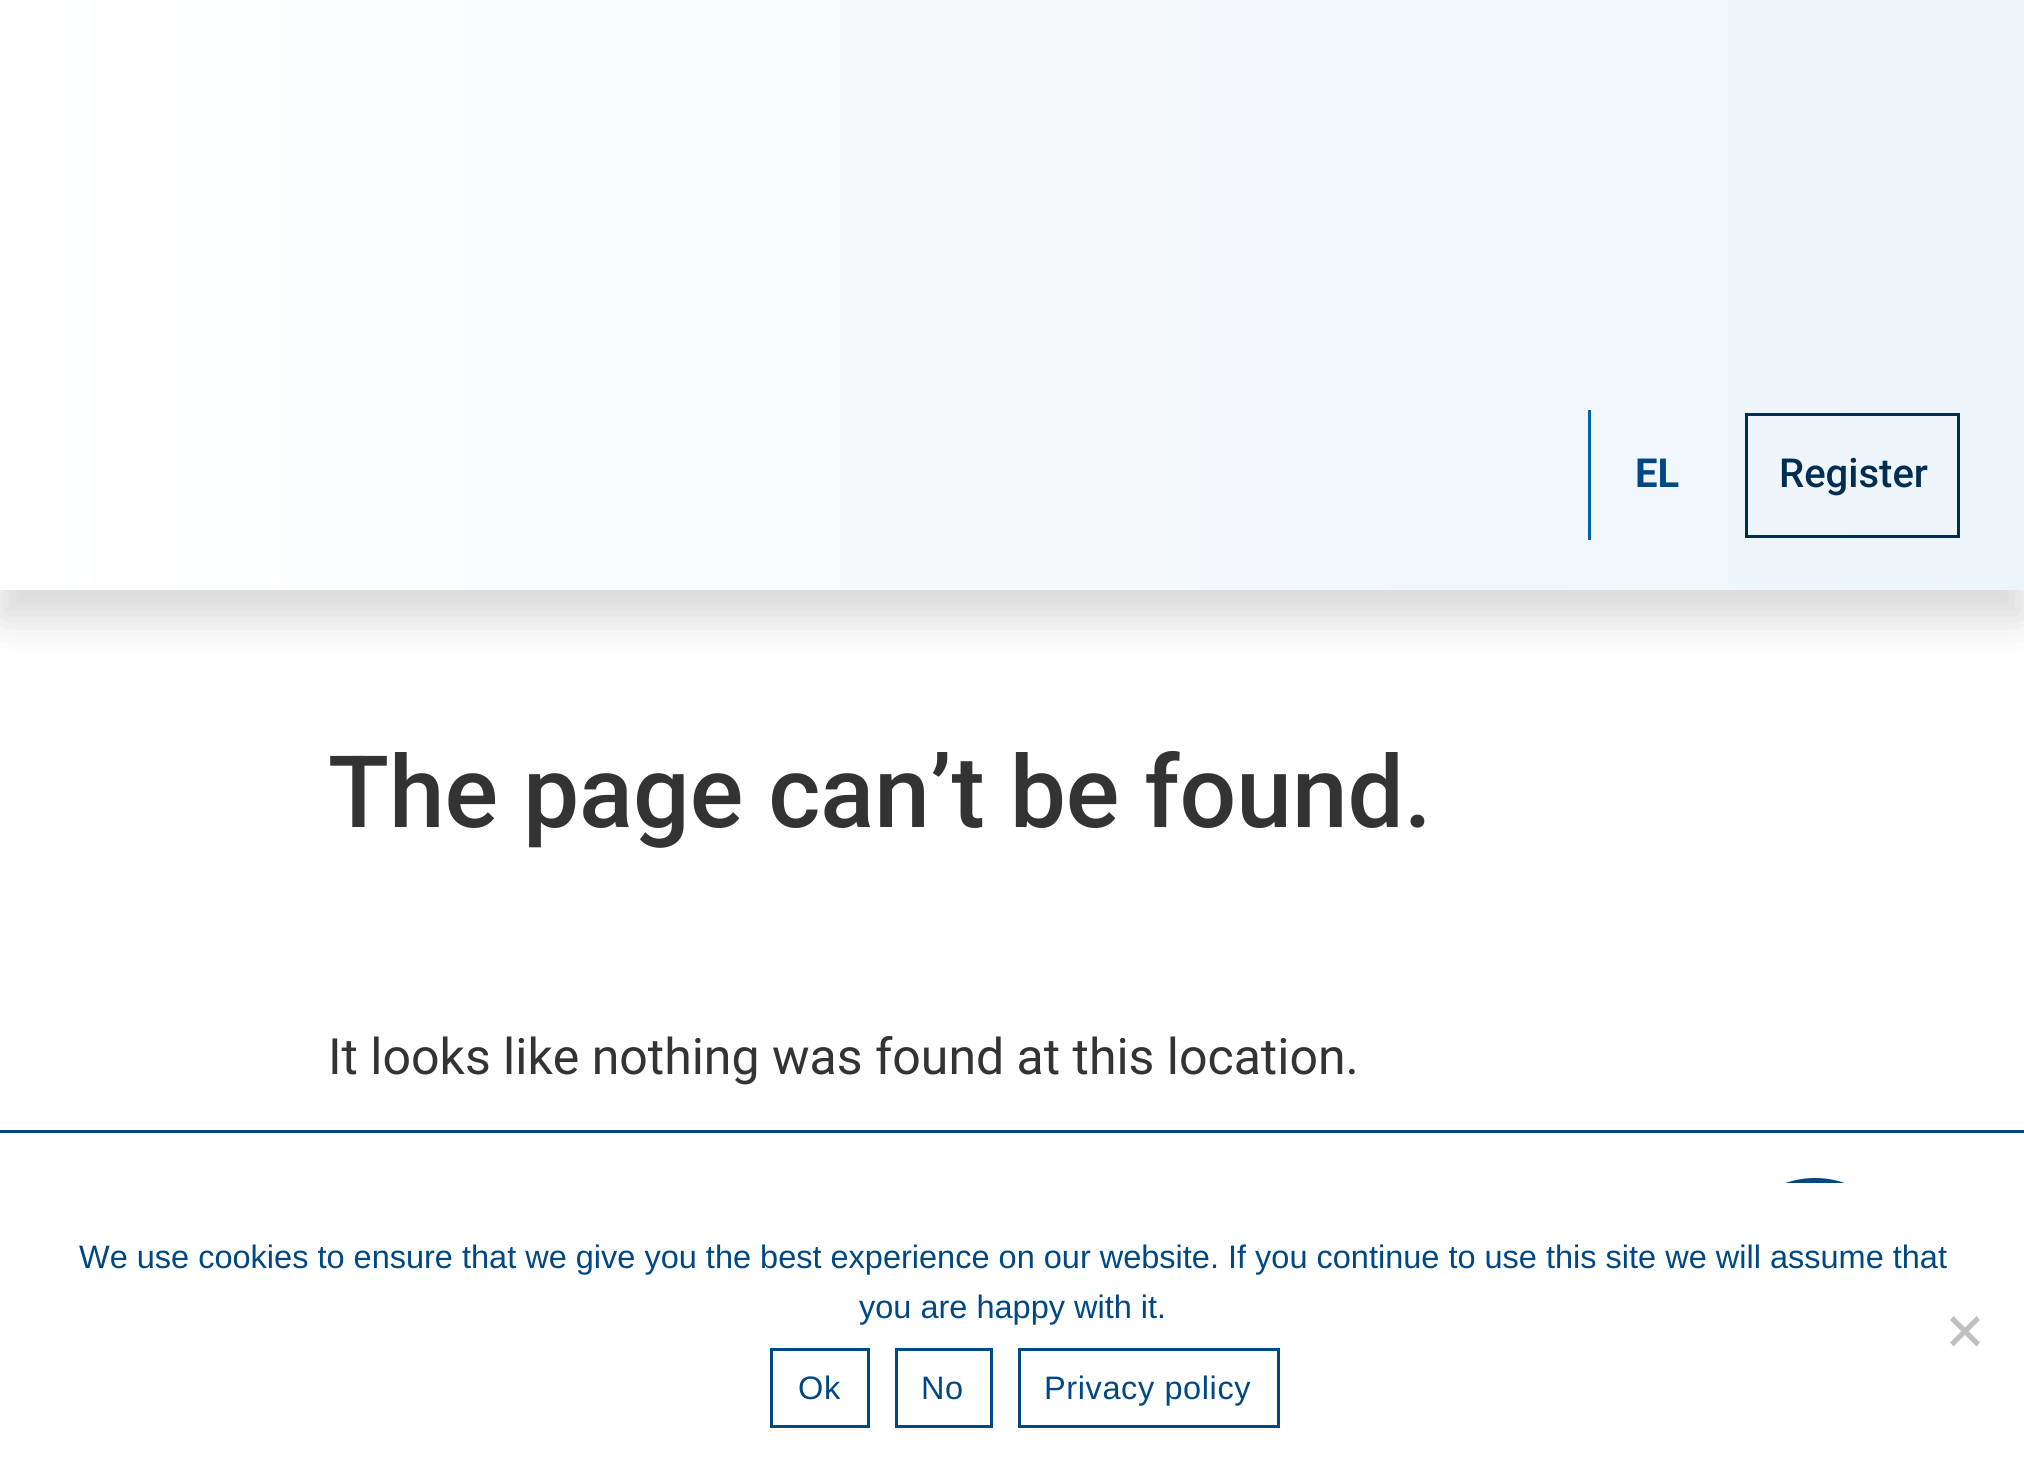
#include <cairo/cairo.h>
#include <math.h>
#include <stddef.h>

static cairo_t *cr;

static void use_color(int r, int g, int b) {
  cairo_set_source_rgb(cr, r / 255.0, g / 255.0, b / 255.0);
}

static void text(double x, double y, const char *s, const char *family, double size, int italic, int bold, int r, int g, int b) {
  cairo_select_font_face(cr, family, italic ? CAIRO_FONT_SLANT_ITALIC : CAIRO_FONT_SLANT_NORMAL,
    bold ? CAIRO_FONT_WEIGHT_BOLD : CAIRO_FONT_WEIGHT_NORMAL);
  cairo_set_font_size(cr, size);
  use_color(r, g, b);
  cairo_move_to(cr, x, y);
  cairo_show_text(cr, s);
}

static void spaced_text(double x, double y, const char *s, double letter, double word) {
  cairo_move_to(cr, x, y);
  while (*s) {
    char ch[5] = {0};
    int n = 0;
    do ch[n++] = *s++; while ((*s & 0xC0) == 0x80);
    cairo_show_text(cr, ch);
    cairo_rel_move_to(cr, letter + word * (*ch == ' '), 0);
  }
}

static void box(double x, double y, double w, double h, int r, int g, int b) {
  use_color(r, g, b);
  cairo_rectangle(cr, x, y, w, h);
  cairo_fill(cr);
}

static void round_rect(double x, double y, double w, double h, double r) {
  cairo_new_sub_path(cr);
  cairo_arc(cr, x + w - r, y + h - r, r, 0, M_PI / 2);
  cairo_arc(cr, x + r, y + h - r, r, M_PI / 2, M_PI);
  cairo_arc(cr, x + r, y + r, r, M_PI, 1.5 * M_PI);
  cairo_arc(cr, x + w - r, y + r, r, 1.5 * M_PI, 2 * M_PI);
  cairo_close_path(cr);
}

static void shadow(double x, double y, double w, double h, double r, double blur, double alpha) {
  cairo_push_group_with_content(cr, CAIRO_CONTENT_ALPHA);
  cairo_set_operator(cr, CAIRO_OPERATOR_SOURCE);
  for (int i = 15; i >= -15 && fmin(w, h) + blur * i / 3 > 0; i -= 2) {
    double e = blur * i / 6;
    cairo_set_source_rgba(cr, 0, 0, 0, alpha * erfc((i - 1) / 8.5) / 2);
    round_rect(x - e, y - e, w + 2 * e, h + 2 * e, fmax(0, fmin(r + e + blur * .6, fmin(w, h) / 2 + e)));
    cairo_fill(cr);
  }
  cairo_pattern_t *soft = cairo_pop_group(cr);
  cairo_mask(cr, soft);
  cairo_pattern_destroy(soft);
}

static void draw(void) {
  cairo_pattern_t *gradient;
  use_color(255, 255, 255);
  cairo_paint(cr);
  use_color(0, 0, 0);
  shadow(0, 30, 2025, 590, 0, 20, 0.15);
  gradient = cairo_pattern_create_linear(0, 295, 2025, 295);
  cairo_pattern_add_color_stop_rgba(gradient, 0, 1, 1, 1, 1);
  cairo_pattern_add_color_stop_rgba(gradient, 1, 0.929, 0.957, 0.98, 1);
  cairo_set_source(cr, gradient);
  cairo_pattern_destroy(gradient);
  cairo_rectangle(cr, 0, 0, 2024, 590);
  cairo_fill(cr);
  box(1588, 410, 3, 130, 0, 98, 168);
  cairo_rectangle(cr, 1746.5, 414.5, 212, 122);
  use_color(0, 46, 83);
  cairo_set_line_width(cr, 3);
  cairo_stroke(cr);
  box(0, 1130, 2024, 3, 0, 72, 132);
  cairo_arc(cr, 1815, 1268, 90, 0, 2 * M_PI);
  cairo_fill(cr);
  box(1725, 1183, 180, 175, 255, 255, 255);
  use_color(192, 192, 192);
  cairo_new_path(cr);
  cairo_move_to(cr, 1976.5, 1316);
  cairo_line_to(cr, 1980, 1320);
  cairo_line_to(cr, 1953.5, 1346.5);
  cairo_line_to(cr, 1950, 1342.5);
  cairo_close_path(cr);
  cairo_fill(cr);
  cairo_new_path(cr);
  cairo_move_to(cr, 1950, 1320);
  cairo_line_to(cr, 1953.5, 1316);
  cairo_line_to(cr, 1980, 1342.5);
  cairo_line_to(cr, 1976.5, 1346.5);
  cairo_close_path(cr);
  cairo_fill(cr);
  cairo_rectangle(cr, 771.5, 1349.5, 97, 77);
  use_color(0, 72, 132);
  cairo_stroke(cr);
  cairo_rectangle(cr, 896.5, 1349.5, 95, 77);
  cairo_stroke(cr);
  cairo_rectangle(cr, 1019.5, 1349.5, 259, 77);
  cairo_stroke(cr);
  text(1635, 487, "EL", "Roboto", 40, 0, 1, 0, 72, 132);
  text(1779, 487, "Register", "Roboto Medium", 40, 0, 0, 0, 46, 83);
  text(328, 827, "The page can’t be found.", "Roboto Medium", 100, 0, 0, 51, 51, 51);
  text(328, 1074, "It looks like nothing was found at this location.", "Roboto", 50, 0, 0, 51, 51, 51);
  text(79, 1268, "We use cookies to ensure that we give you the best experience on our website. If you continue to use this site we will assume that", "Liberation Sans", 32.5, 0, 0, 0, 72, 132);
  text(859, 1318, "you are happy with it.", "Liberation Sans", 32.5, 0, 0, 0, 72, 132);
  spaced_text(798, 1399, "Ok", 0.6, 0);
  spaced_text(921, 1399, "No", 0.6, 0);
  spaced_text(1044, 1399, "Privacy policy", 0.6, 0);
}

int main(void) {
  cairo_surface_t *surface = cairo_image_surface_create(CAIRO_FORMAT_RGB24, 2024, 1477);
  cr = cairo_create(surface);
  cairo_font_options_t *options = cairo_font_options_create();
  cairo_font_options_set_hint_metrics(options, CAIRO_HINT_METRICS_OFF);
  cairo_font_options_set_hint_style(options, CAIRO_HINT_STYLE_NONE);
  cairo_set_font_options(cr, options);
  cairo_set_miter_limit(cr, 4);
  draw();
  cairo_surface_write_to_png(surface, "out.png");
  cairo_font_options_destroy(options);
  cairo_destroy(cr);
  cairo_surface_destroy(surface);
  return 0;
}
